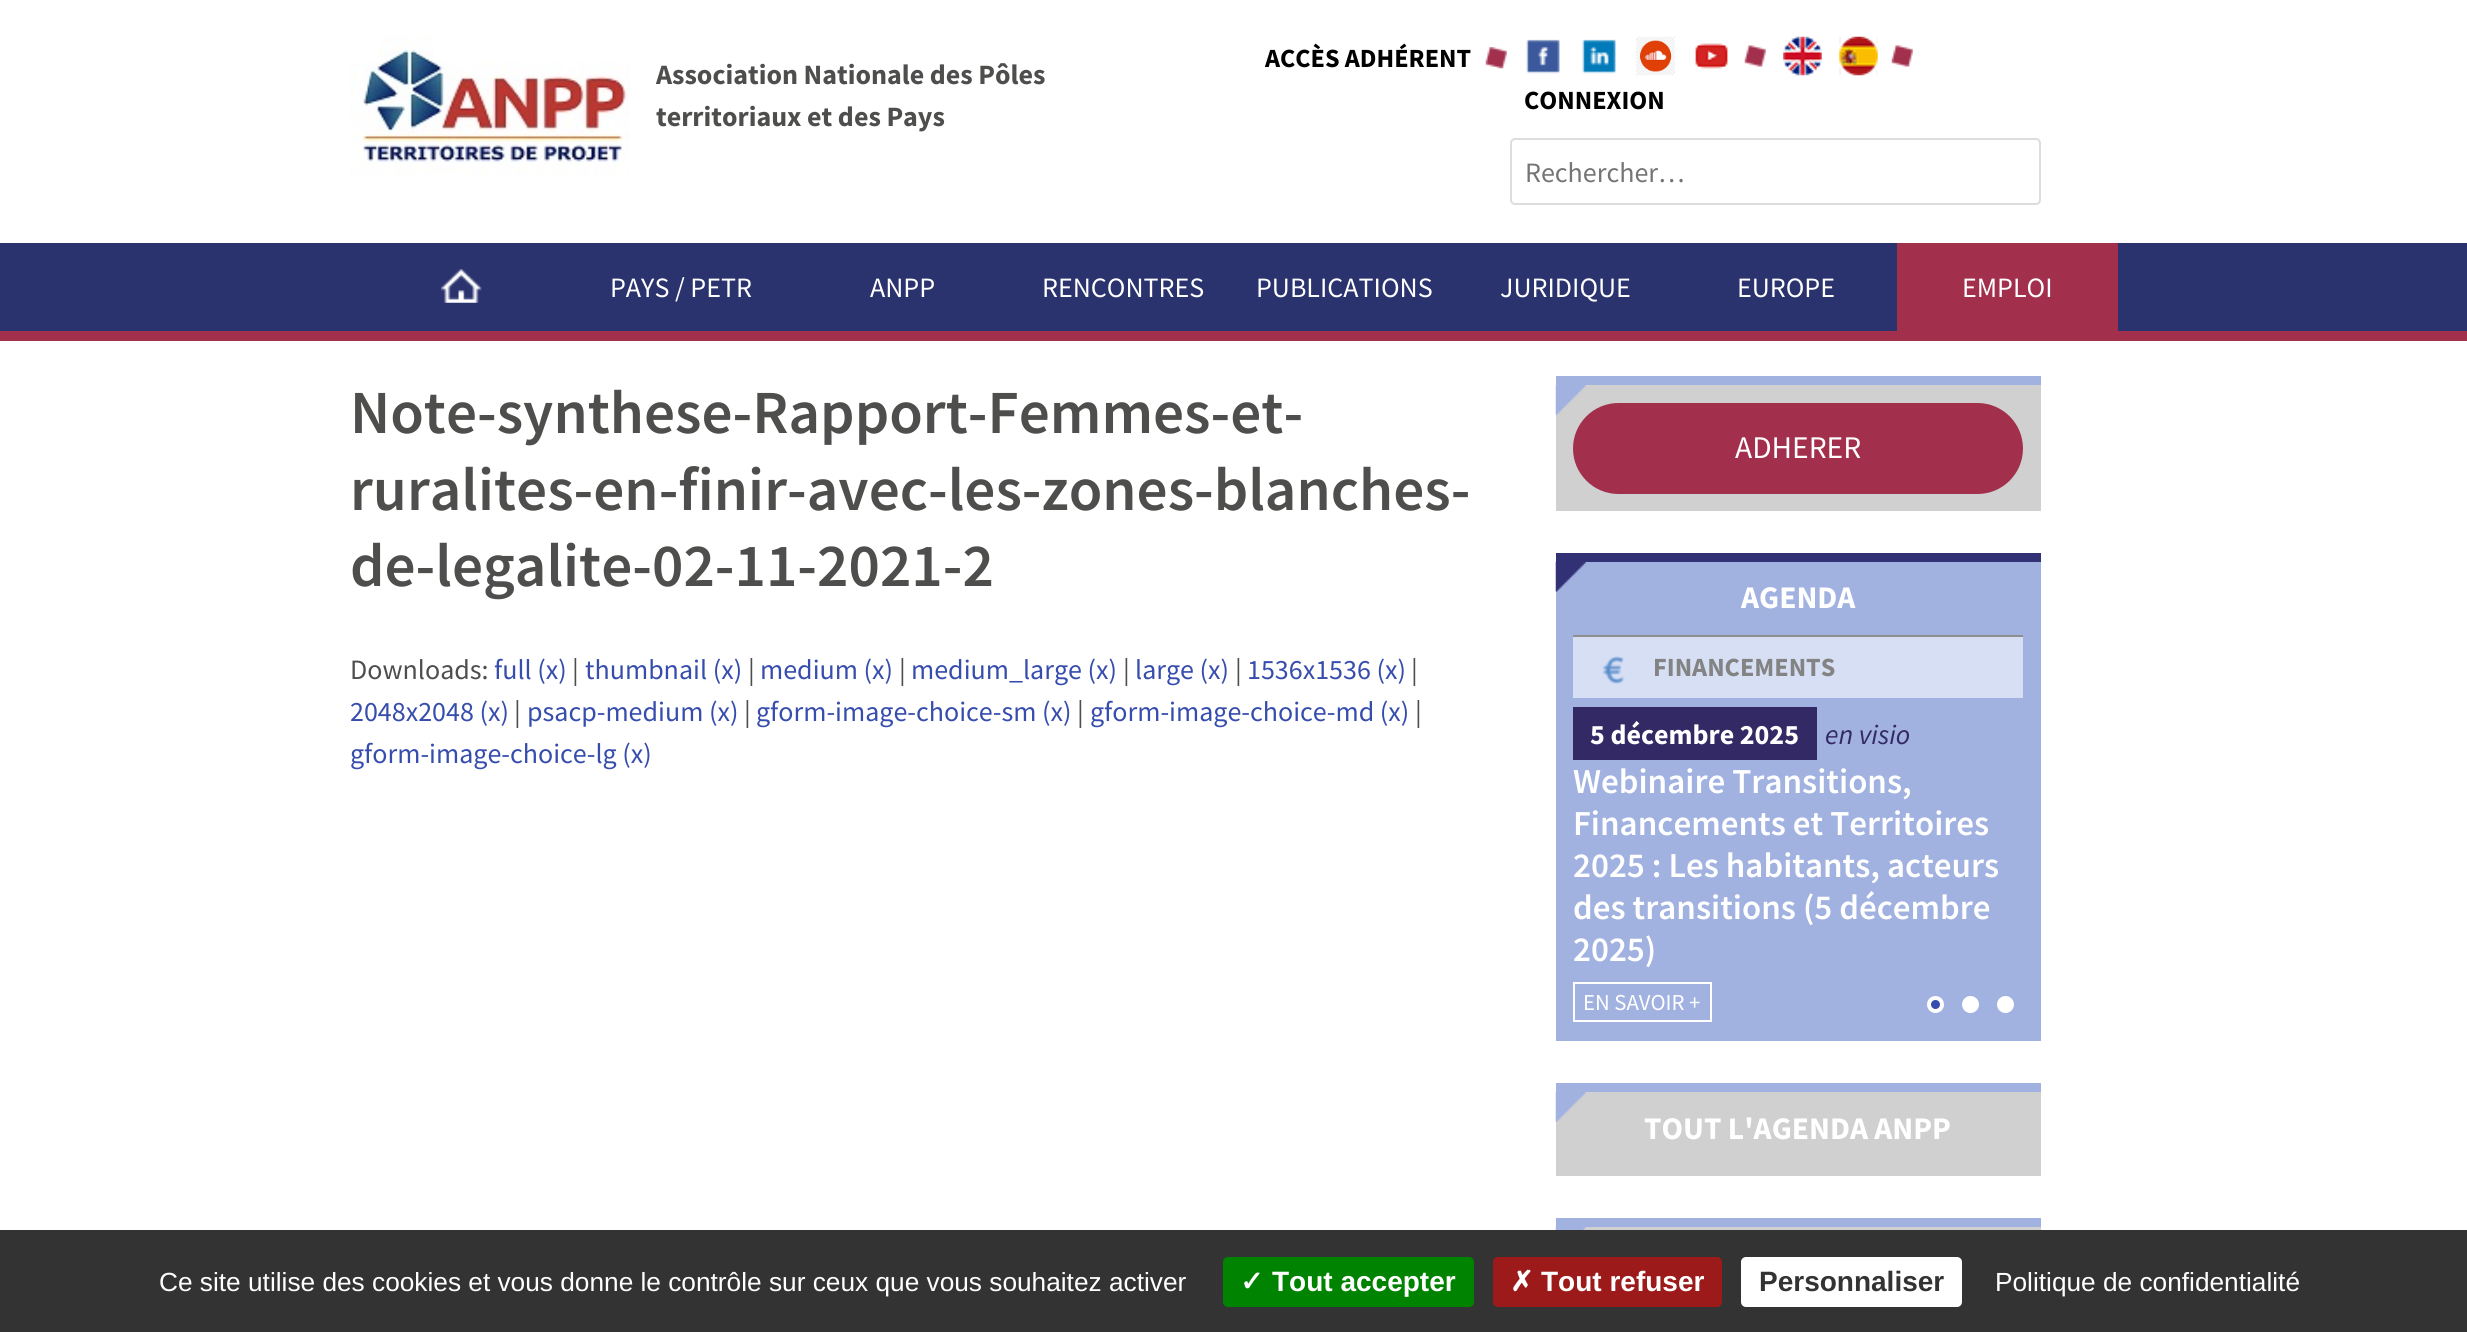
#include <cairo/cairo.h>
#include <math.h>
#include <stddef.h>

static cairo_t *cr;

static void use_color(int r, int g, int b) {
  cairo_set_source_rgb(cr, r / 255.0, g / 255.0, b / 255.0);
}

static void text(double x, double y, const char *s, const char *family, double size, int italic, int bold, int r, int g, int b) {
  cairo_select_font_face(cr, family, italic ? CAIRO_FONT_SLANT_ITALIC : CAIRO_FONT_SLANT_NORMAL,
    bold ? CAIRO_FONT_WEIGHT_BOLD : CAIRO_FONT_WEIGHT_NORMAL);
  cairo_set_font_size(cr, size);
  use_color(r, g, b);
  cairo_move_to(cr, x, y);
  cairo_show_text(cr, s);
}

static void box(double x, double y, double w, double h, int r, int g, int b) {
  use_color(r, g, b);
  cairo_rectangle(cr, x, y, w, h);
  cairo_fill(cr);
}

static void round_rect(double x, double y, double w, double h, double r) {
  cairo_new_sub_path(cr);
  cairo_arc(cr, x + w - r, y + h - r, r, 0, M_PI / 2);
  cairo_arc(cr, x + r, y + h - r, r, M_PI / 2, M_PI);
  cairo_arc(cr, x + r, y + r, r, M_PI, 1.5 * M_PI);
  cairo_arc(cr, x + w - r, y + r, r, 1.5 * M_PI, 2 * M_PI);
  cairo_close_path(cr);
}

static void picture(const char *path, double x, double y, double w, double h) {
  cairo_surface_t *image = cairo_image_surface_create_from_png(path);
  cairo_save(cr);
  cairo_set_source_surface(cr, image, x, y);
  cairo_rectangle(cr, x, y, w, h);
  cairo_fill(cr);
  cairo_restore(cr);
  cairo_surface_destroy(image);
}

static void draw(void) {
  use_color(255, 255, 255);
  cairo_paint(cr);
  picture("img_01.png", 350, 35, 280, 141);
  picture("img_02.png", 1485, 47, 22, 22);
  picture("img_03.png", 1526, 39, 34, 35);
  picture("img_04.png", 1582, 39, 34, 35);
  picture("img_05.png", 1636, 36, 39, 40);
  picture("img_06.png", 1744, 45, 22, 22);
  picture("img_07.png", 1695, 43, 33, 26);
  picture("img_08.png", 1783, 36, 39, 40);
  picture("img_06.png", 1891, 45, 22, 22);
  picture("img_09.png", 1839, 36, 39, 40);
  round_rect(1511, 139, 529, 65, 4);
  use_color(221, 221, 221);
  cairo_stroke(cr);
  box(0, 243, 2467, 88, 42, 51, 110);
  box(0, 331, 2467, 10, 162, 48, 77);
  picture("img_10.png", 441, 269, 41, 34);
  box(1897, 243, 221, 88, 162, 48, 77);
  box(1556, 385, 485, 126, 208, 208, 208);
  box(1556, 376, 485, 9, 161, 178, 225);
  picture("img_11.png", 1555, 385, 31, 30);
  use_color(162, 48, 77);
  round_rect(1573, 403, 450, 91, 45.5);
  cairo_fill(cr);
  box(1556, 562, 485, 479, 161, 178, 225);
  box(1556, 553, 485, 9, 51, 49, 118);
  picture("img_12.png", 1555, 561, 31, 31);
  box(1573, 637, 450, 61, 215, 223, 245);
  box(1573, 635, 450, 2, 143, 143, 143);
  picture("img_13.png", 1602, 655, 23, 29);
  box(1573, 707, 244, 53, 51, 41, 101);
  cairo_rectangle(cr, 1574, 983, 137, 38);
  use_color(255, 255, 255);
  cairo_stroke(cr);
  use_color(54, 77, 173);
  cairo_arc(cr, 1935.5, 1004.5, 6.5, 0, 2 * M_PI);
  cairo_fill_preserve(cr);
  use_color(255, 255, 255);
  cairo_set_line_width(cr, 4);
  cairo_stroke(cr);
  cairo_arc(cr, 1970.5, 1004.5, 8.5, 0, 2 * M_PI);
  cairo_fill(cr);
  cairo_arc(cr, 2005.5, 1004.5, 8.5, 0, 2 * M_PI);
  cairo_fill(cr);
  box(1556, 1092, 485, 84, 208, 208, 208);
  box(1556, 1083, 485, 9, 161, 178, 225);
  picture("img_11.png", 1555, 1092, 31, 30);
  box(1581, 1227, 460, 3, 208, 208, 208);
  box(1556, 1218, 485, 9, 161, 178, 225);
  picture("img_14.png", 1555, 1226, 31, 4);
  box(0, 1230, 2467, 102, 51, 51, 51);
  use_color(0, 131, 0);
  round_rect(1223, 1257, 251, 50, 5);
  cairo_fill(cr);
  use_color(156, 26, 26);
  round_rect(1493, 1257, 229, 50, 5);
  cairo_fill(cr);
  use_color(255, 255, 255);
  round_rect(1741, 1257, 221, 50, 5);
  cairo_fill(cr);
  text(656, 84, "Association Nationale des Pôles", "Source Sans Pro", 28, 0, 1, 78, 78, 77);
  text(656, 126, "territoriaux et des Pays", "Source Sans Pro", 28, 0, 1, 78, 78, 77);
  text(1265, 67, "ACCÈS ADHÉRENT", "Source Sans Pro", 26.25, 0, 1, 0, 0, 0);
  text(1524, 109, "CONNEXION", "Source Sans Pro", 26.25, 0, 1, 0, 0, 0);
  text(1525, 182, "Rechercher…", "Source Sans Pro", 28, 0, 0, 117, 117, 117);
  text(610, 297, "PAYS / PETR", "Source Sans Pro", 28, 0, 0, 255, 255, 255);
  text(870, 297, "ANPP", "Source Sans Pro", 28, 0, 0, 255, 255, 255);
  text(1042, 297, "RENCONTRES", "Source Sans Pro", 28, 0, 0, 255, 255, 255);
  text(1256, 297, "PUBLICATIONS", "Source Sans Pro", 28, 0, 0, 255, 255, 255);
  text(1500, 297, "JURIDIQUE", "Source Sans Pro", 28, 0, 0, 255, 255, 255);
  text(1737, 297, "EUROPE", "Source Sans Pro", 28, 0, 0, 255, 255, 255);
  text(1962, 297, "EMPLOI", "Source Sans Pro", 28, 0, 0, 255, 255, 255);
  text(350, 433, "Note-synthese-Rapport-Femmes-et-", "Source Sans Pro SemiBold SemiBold", 61.25, 0, 0, 78, 78, 77);
  text(350, 510, "ruralites-en-finir-avec-les-zones-blanches-", "Source Sans Pro SemiBold SemiBold", 61.25, 0, 0, 78, 78, 77);
  text(350, 586, "de-legalite-02-11-2021-2", "Source Sans Pro SemiBold SemiBold", 61.25, 0, 0, 78, 78, 77);
  text(350, 679, "Downloads:", "Source Sans Pro", 28, 0, 0, 78, 78, 77);
  text(494, 679, "full (x)", "Source Sans Pro", 28, 0, 0, 54, 77, 173);
  text(572, 679, "|", "Source Sans Pro", 28, 0, 0, 78, 78, 77);
  text(585, 679, "thumbnail (x)", "Source Sans Pro", 28, 0, 0, 54, 77, 173);
  text(748, 679, "|", "Source Sans Pro", 28, 0, 0, 78, 78, 77);
  text(760, 679, "medium (x)", "Source Sans Pro", 28, 0, 0, 54, 77, 173);
  text(899, 679, "|", "Source Sans Pro", 28, 0, 0, 78, 78, 77);
  text(911, 679, "medium_large (x)", "Source Sans Pro", 28, 0, 0, 54, 77, 173);
  text(1123, 679, "|", "Source Sans Pro", 28, 0, 0, 78, 78, 77);
  text(1135, 679, "large (x)", "Source Sans Pro", 28, 0, 0, 54, 77, 173);
  text(1235, 679, "|", "Source Sans Pro", 28, 0, 0, 78, 78, 77);
  text(1247, 679, "1536x1536 (x)", "Source Sans Pro", 28, 0, 0, 54, 77, 173);
  text(1411, 679, "|", "Source Sans Pro", 28, 0, 0, 78, 78, 77);
  text(350, 721, "2048x2048 (x)", "Source Sans Pro", 28, 0, 0, 54, 77, 173);
  text(514, 721, "|", "Source Sans Pro", 28, 0, 0, 78, 78, 77);
  text(527, 721, "psacp-medium (x)", "Source Sans Pro", 28, 0, 0, 54, 77, 173);
  text(744, 721, "|", "Source Sans Pro", 28, 0, 0, 78, 78, 77);
  text(756, 721, "gform-image-choice-sm (x)", "Source Sans Pro", 28, 0, 0, 54, 77, 173);
  text(1077, 721, "|", "Source Sans Pro", 28, 0, 0, 78, 78, 77);
  text(1090, 721, "gform-image-choice-md (x)", "Source Sans Pro", 28, 0, 0, 54, 77, 173);
  text(1415, 721, "|", "Source Sans Pro", 28, 0, 0, 78, 78, 77);
  text(350, 763, "gform-image-choice-lg (x)", "Source Sans Pro", 28, 0, 0, 54, 77, 173);
  text(1735, 458, "ADHERER", "Source Sans Pro", 31.5, 0, 0, 255, 255, 255);
  text(1741, 608, "AGENDA", "Source Sans Pro", 31.5, 0, 1, 255, 255, 255);
  text(1653, 676, "FINANCEMENTS", "Source Sans Pro", 26.25, 0, 1, 131, 131, 131);
  text(1590, 744, "5 décembre 2025", "Source Sans Pro", 28, 0, 1, 255, 255, 255);
  text(1825, 744, "en visio", "Source Sans Pro", 28, 1, 0, 51, 41, 101);
  text(1573, 793, "Webinaire Transitions,", "Source Sans Pro SemiBold SemiBold", 35, 0, 0, 255, 255, 255);
  text(1573, 835, "Financements et Territoires", "Source Sans Pro SemiBold SemiBold", 35, 0, 0, 255, 255, 255);
  text(1573, 877, "2025 : Les habitants, acteurs", "Source Sans Pro SemiBold SemiBold", 35, 0, 0, 255, 255, 255);
  text(1573, 919, "des transitions (5 décembre", "Source Sans Pro SemiBold SemiBold", 35, 0, 0, 255, 255, 255);
  text(1573, 961, "2025)", "Source Sans Pro SemiBold SemiBold", 35, 0, 0, 255, 255, 255);
  text(1583, 1010, "EN SAVOIR +", "Source Sans Pro", 22.75, 0, 0, 255, 255, 255);
  text(1644, 1139, "TOUT L'AGENDA ANPP", "Source Sans Pro", 31.5, 0, 1, 255, 255, 255);
  text(159, 1291, "Ce site utilise des cookies et vous donne le contrôle sur ceux que vous souhaitez activer", "Liberation Sans", 26.25, 0, 0, 255, 255, 255);
  text(1240, 1291, "✓", "DejaVu Sans", 28, 0, 1, 255, 255, 255);
  text(1272, 1291, "Tout accepter", "Liberation Sans", 28, 0, 1, 255, 255, 255);
  text(1510, 1291, "✗", "DejaVu Sans", 28, 0, 1, 255, 255, 255);
  text(1541, 1291, "Tout refuser", "Liberation Sans", 28, 0, 1, 255, 255, 255);
  text(1759, 1291, "Personnaliser", "Liberation Sans", 28, 0, 1, 51, 51, 51);
  text(1995, 1291, "Politique de confidentialité", "Liberation Sans", 26.25, 0, 0, 255, 255, 255);
}

int main(void) {
  cairo_surface_t *surface = cairo_image_surface_create(CAIRO_FORMAT_RGB24, 2467, 1332);
  cr = cairo_create(surface);
  cairo_font_options_t *options = cairo_font_options_create();
  cairo_font_options_set_hint_metrics(options, CAIRO_HINT_METRICS_OFF);
  cairo_font_options_set_hint_style(options, CAIRO_HINT_STYLE_NONE);
  cairo_set_font_options(cr, options);
  cairo_set_miter_limit(cr, 4);
  draw();
  cairo_surface_write_to_png(surface, "out.png");
  cairo_font_options_destroy(options);
  cairo_destroy(cr);
  cairo_surface_destroy(surface);
  return 0;
}
